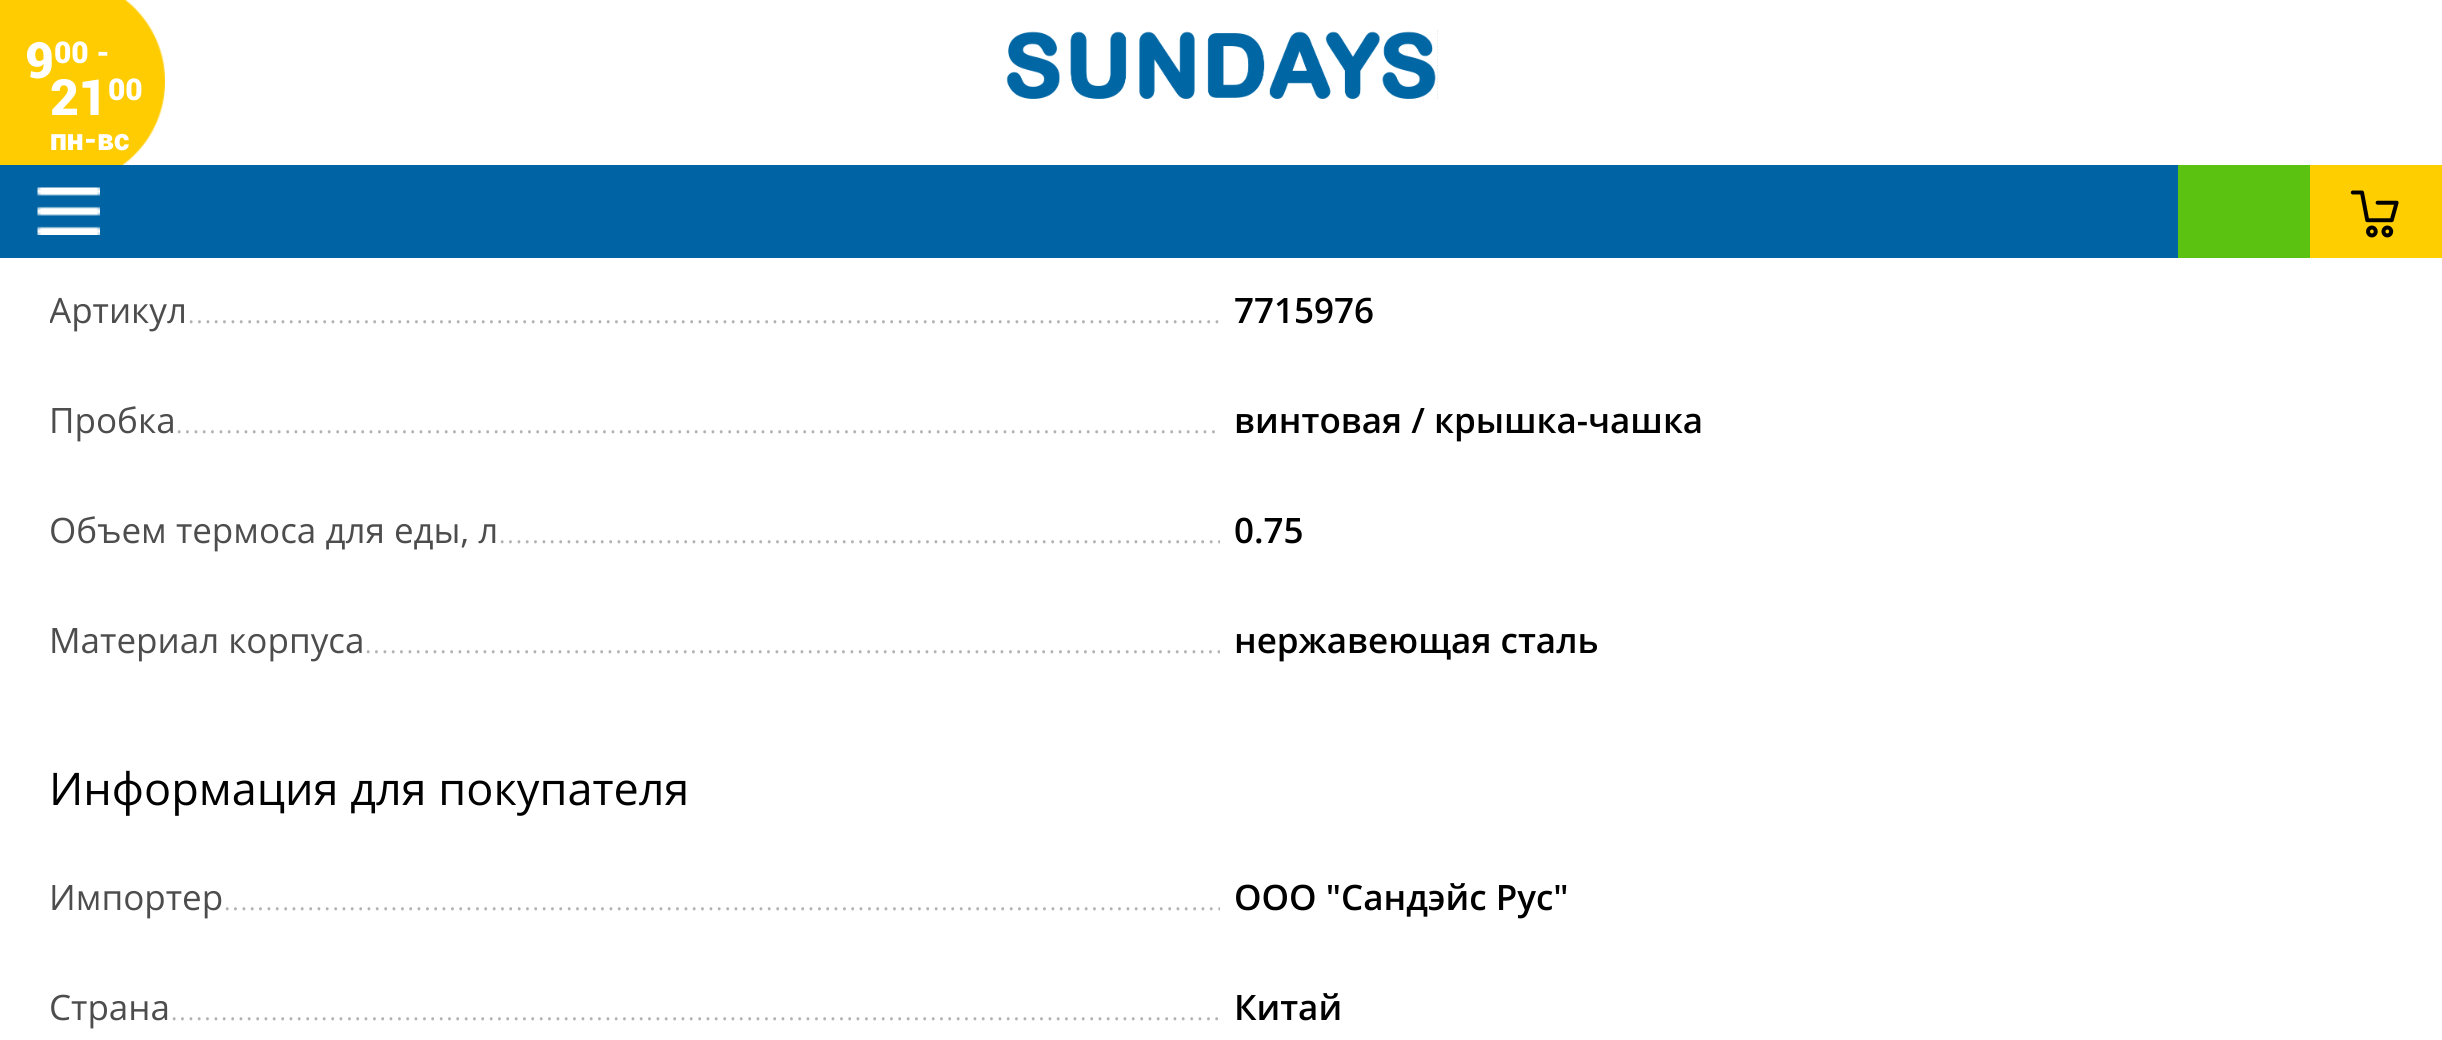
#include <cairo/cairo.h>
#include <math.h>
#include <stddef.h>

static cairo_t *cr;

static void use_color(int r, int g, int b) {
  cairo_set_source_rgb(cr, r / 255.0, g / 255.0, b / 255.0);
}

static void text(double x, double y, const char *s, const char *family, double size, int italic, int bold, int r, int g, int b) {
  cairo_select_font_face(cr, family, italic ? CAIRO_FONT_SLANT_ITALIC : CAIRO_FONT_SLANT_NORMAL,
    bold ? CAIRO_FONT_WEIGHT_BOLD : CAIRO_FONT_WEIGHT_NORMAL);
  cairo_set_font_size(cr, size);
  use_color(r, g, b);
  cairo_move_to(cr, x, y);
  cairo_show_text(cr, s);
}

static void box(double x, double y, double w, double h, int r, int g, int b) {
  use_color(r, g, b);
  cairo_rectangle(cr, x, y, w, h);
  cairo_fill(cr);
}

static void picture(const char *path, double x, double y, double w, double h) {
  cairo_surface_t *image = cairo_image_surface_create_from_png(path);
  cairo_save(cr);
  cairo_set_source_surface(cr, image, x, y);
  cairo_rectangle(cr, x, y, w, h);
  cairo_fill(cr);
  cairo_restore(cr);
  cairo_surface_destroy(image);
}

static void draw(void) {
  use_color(255, 255, 255);
  cairo_paint(cr);
  box(0, 165, 2178, 93, 0, 99, 163);
  picture("img_01.png", 1006, 30, 432, 69);
  picture("img_02.png", 37, 187, 63, 48);
  box(2178, 165, 132, 93, 91, 194, 18);
  box(2310, 165, 132, 93, 255, 206, 0);
  picture("img_03.png", 2350, 190, 49, 48);
  picture("img_04.png", 0, 0, 165, 165);
  text(25, 78, "9", "Roboto Black", 50, 0, 0, 255, 255, 255);
  text(54, 63, "00 -", "Roboto Black", 30, 0, 0, 255, 255, 255);
  text(50, 115, "21", "Roboto Black", 50, 0, 0, 255, 255, 255);
  text(108, 100, "00", "Roboto Black", 30, 0, 0, 255, 255, 255);
  text(50, 150, "пн-вс", "Roboto Black", 30, 0, 0, 255, 255, 255);
  cairo_save(cr);
  cairo_rectangle(cr, 50, 280, 1170, 60);
  cairo_clip(cr);
  text(49, 323, "Артикул", "Open Sans", 35, 0, 0, 77, 77, 77);
  cairo_restore(cr);
  text(187, 323, "............................................................................................................................", "Open Sans Light", 35, 0, 0, 178, 178, 178);
  text(1234, 323, "7715976", "Open Sans SemiBold", 35, 0, 0, 0, 0, 0);
  text(49, 433, "Пробка", "Open Sans", 35, 0, 0, 77, 77, 77);
  text(175, 433, ".............................................................................................................................", "Open Sans Light", 35, 0, 0, 178, 178, 178);
  text(1234, 433, "винтовая / крышка-чашка", "Open Sans SemiBold", 35, 0, 0, 0, 0, 0);
  text(49, 543, "Объем термоса для еды, л", "Open Sans", 35, 0, 0, 77, 77, 77);
  cairo_save(cr);
  cairo_rectangle(cr, 50, 500, 1170, 60);
  cairo_clip(cr);
  text(498, 543, ".......................................................................................", "Open Sans Light", 35, 0, 0, 178, 178, 178);
  cairo_restore(cr);
  text(1234, 543, "0.75", "Open Sans SemiBold", 35, 0, 0, 0, 0, 0);
  text(49, 653, "Материал корпуса", "Open Sans", 35, 0, 0, 77, 77, 77);
  cairo_save(cr);
  cairo_rectangle(cr, 50, 610, 1170, 60);
  cairo_clip(cr);
  text(364, 653, ".......................................................................................................", "Open Sans Light", 35, 0, 0, 178, 178, 178);
  cairo_restore(cr);
  text(1234, 653, "нержавеющая сталь", "Open Sans SemiBold", 35, 0, 0, 0, 0, 0);
  text(49, 805, "Информация для покупателя", "Open Sans", 45, 0, 0, 0, 0, 0);
  text(49, 910, "Импортер", "Open Sans", 35, 0, 0, 77, 77, 77);
  cairo_save(cr);
  cairo_rectangle(cr, 50, 868, 1170, 60);
  cairo_clip(cr);
  text(223, 910, "........................................................................................................................", "Open Sans Light", 35, 0, 0, 178, 178, 178);
  cairo_restore(cr);
  text(1234, 910, "ООО \"Сандэйс Рус\"", "Open Sans SemiBold", 35, 0, 0, 0, 0, 0);
  text(49, 1020, "Страна", "Open Sans", 35, 0, 0, 77, 77, 77);
  text(170, 1020, "..............................................................................................................................", "Open Sans Light", 35, 0, 0, 178, 178, 178);
  text(1234, 1020, "Китай", "Open Sans SemiBold", 35, 0, 0, 0, 0, 0);
}

int main(void) {
  cairo_surface_t *surface = cairo_image_surface_create(CAIRO_FORMAT_RGB24, 2442, 1040);
  cr = cairo_create(surface);
  cairo_font_options_t *options = cairo_font_options_create();
  cairo_font_options_set_hint_metrics(options, CAIRO_HINT_METRICS_OFF);
  cairo_font_options_set_hint_style(options, CAIRO_HINT_STYLE_NONE);
  cairo_set_font_options(cr, options);
  cairo_set_miter_limit(cr, 4);
  draw();
  cairo_surface_write_to_png(surface, "out.png");
  cairo_font_options_destroy(options);
  cairo_destroy(cr);
  cairo_surface_destroy(surface);
  return 0;
}
